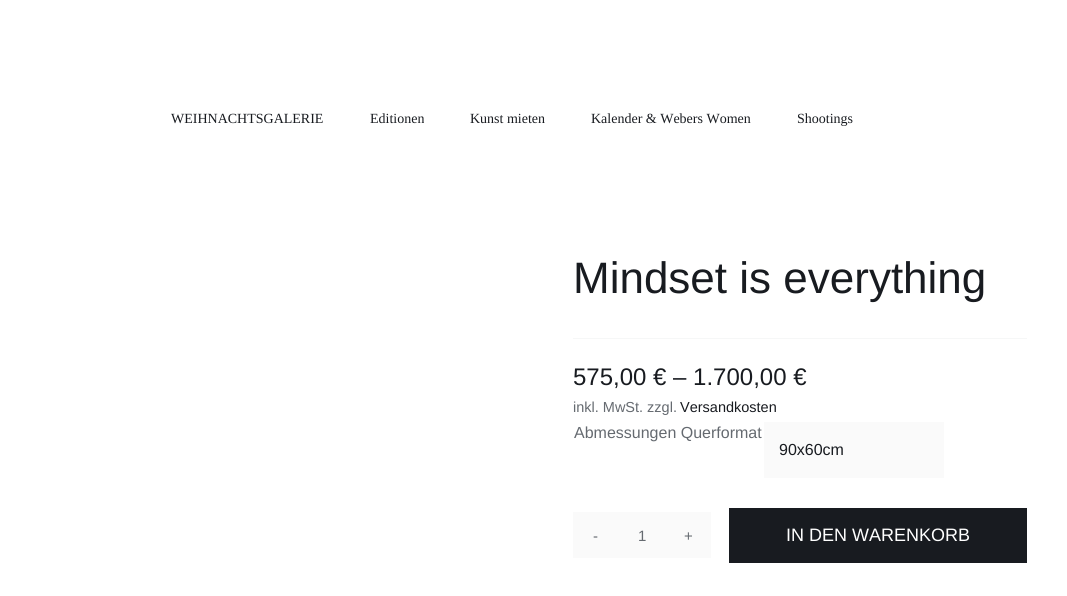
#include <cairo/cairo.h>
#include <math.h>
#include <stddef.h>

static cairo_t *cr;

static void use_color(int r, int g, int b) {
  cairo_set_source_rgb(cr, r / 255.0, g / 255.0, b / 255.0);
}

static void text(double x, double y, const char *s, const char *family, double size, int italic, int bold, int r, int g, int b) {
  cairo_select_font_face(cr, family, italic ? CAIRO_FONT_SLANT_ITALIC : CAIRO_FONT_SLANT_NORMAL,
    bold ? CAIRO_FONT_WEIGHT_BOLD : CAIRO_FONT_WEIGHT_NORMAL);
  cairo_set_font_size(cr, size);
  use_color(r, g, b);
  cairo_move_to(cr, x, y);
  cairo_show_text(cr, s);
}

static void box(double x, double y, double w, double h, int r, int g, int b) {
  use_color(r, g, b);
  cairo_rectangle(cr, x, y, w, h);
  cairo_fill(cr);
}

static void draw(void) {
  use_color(255, 255, 255);
  cairo_paint(cr);
  box(573, 338, 454, 1, 246, 247, 247);
  box(764, 422, 180, 56, 250, 250, 250);
  box(573, 512, 138, 46, 250, 250, 250);
  box(729, 508, 298, 55, 24, 27, 32);
  text(171, 123, "WEIHNACHTSGALERIE", "Liberation Serif", 14, 0, 0, 24, 27, 32);
  text(370, 123, "Editionen", "Liberation Serif", 14, 0, 0, 24, 27, 32);
  text(470, 123, "Kunst mieten", "Liberation Serif", 14, 0, 0, 24, 27, 32);
  text(591, 123, "Kalender & Webers Women", "Liberation Serif", 14, 0, 0, 24, 27, 32);
  text(797, 123, "Shootings", "Liberation Serif", 14, 0, 0, 24, 27, 32);
  text(573, 293, "Mindset is everything", "Liberation Sans", 44, 0, 0, 24, 27, 32);
  text(573, 385, "575,00 € – 1.700,00 €", "Liberation Sans", 24, 0, 0, 24, 27, 32);
  text(573, 412, "inkl. MwSt. zzgl.", "Liberation Sans", 14.5, 0, 0, 101, 106, 112);
  text(680, 412, "Versandkosten", "Liberation Sans", 14.5, 0, 0, 24, 27, 32);
  text(574, 438, "Abmessungen Querformat", "Liberation Sans", 16, 0, 0, 101, 106, 112);
  text(779, 455, "90x60cm", "Liberation Sans", 16, 0, 0, 24, 27, 32);
  text(593, 541, "-", "Liberation Sans", 15, 0, 0, 101, 106, 112);
  text(638, 541, "1", "Liberation Sans", 15, 0, 0, 101, 106, 112);
  text(684, 541, "+", "Liberation Sans", 15, 0, 0, 101, 106, 112);
  text(786, 541, "IN DEN WARENKORB", "Liberation Sans", 18, 0, 0, 255, 255, 255);
}

int main(void) {
  cairo_surface_t *surface = cairo_image_surface_create(CAIRO_FORMAT_RGB24, 1067, 596);
  cr = cairo_create(surface);
  cairo_font_options_t *options = cairo_font_options_create();
  cairo_font_options_set_hint_metrics(options, CAIRO_HINT_METRICS_OFF);
  cairo_font_options_set_hint_style(options, CAIRO_HINT_STYLE_NONE);
  cairo_set_font_options(cr, options);
  cairo_set_miter_limit(cr, 4);
  draw();
  cairo_surface_write_to_png(surface, "out.png");
  cairo_font_options_destroy(options);
  cairo_destroy(cr);
  cairo_surface_destroy(surface);
  return 0;
}
